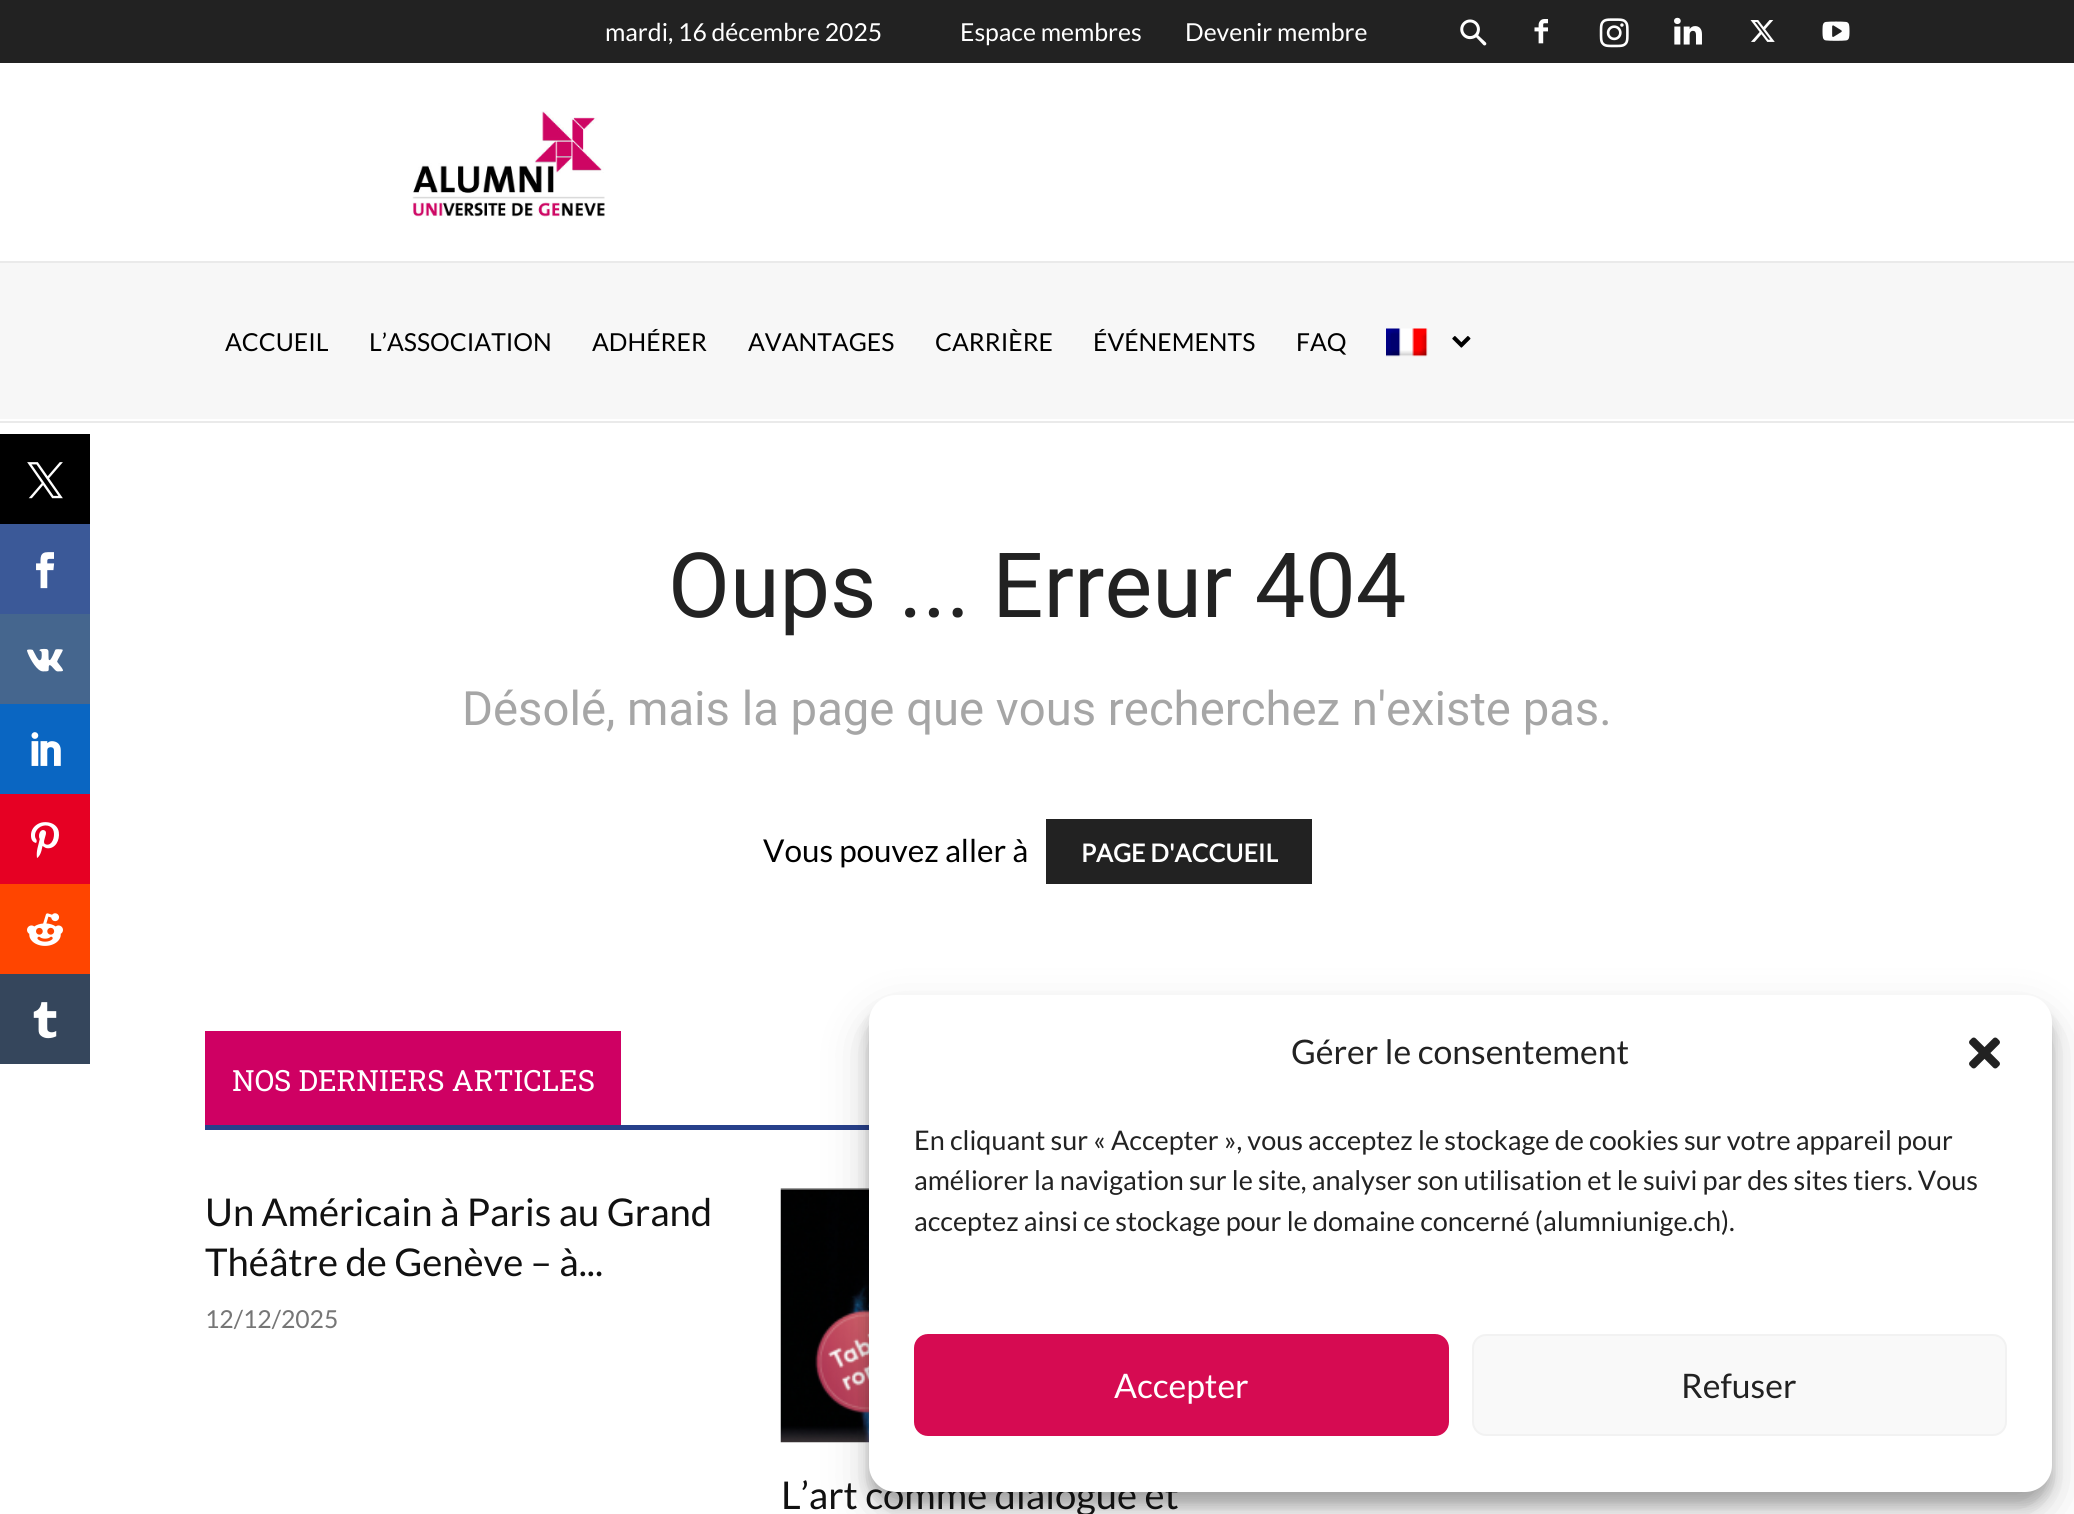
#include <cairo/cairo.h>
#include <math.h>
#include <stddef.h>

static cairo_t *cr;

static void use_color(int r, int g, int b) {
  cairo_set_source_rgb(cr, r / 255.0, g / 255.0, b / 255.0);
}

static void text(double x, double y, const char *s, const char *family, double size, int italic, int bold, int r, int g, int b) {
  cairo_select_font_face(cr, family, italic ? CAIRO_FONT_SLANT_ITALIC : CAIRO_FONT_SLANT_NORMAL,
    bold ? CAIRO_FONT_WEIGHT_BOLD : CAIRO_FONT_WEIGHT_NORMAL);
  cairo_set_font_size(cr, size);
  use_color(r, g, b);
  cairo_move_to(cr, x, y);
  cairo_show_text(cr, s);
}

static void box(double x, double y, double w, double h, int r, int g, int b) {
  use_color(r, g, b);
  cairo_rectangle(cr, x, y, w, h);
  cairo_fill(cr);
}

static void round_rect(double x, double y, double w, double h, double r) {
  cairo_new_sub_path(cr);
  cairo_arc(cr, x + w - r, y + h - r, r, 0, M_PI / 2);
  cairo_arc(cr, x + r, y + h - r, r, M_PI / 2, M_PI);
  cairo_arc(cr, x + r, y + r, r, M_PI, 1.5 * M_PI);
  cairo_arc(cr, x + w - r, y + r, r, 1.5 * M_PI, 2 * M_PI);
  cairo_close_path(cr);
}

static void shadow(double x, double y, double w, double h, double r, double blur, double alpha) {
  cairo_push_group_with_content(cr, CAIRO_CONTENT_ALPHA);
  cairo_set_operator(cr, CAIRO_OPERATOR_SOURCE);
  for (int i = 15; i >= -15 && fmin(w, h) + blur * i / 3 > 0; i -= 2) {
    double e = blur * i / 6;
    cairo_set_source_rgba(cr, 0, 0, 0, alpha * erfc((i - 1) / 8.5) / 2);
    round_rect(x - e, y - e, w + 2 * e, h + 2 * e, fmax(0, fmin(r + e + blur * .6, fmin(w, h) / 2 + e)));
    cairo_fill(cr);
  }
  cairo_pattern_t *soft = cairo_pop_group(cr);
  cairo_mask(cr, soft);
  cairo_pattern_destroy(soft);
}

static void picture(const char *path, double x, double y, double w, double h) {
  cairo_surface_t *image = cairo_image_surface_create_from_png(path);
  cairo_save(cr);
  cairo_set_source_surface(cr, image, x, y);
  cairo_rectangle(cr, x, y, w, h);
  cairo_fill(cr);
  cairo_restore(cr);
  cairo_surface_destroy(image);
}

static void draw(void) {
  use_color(255, 255, 255);
  cairo_paint(cr);
  box(0, 434, 90, 90, 0, 0, 0);
  picture("img_01.png", 27, 462, 36, 37);
  box(0, 524, 90, 90, 59, 89, 152);
  picture("img_02.png", 36, 552, 19, 37);
  box(0, 614, 90, 90, 69, 102, 142);
  picture("img_03.png", 27, 648, 36, 24);
  box(0, 704, 90, 90, 10, 102, 194);
  picture("img_04.png", 31, 732, 30, 34);
  box(0, 794, 90, 90, 230, 0, 35);
  picture("img_05.png", 31, 822, 28, 36);
  box(0, 884, 90, 90, 255, 69, 0);
  picture("img_06.png", 27, 913, 36, 33);
  box(0, 974, 90, 90, 53, 70, 92);
  picture("img_07.png", 33, 1002, 24, 37);
  box(0, 0, 2074, 63, 34, 34, 34);
  picture("img_08.png", 1460, 19, 27, 27);
  picture("img_09.png", 1534, 19, 14, 25);
  picture("img_10.png", 1599, 18, 30, 30);
  picture("img_11.png", 1674, 17, 28, 28);
  picture("img_12.png", 1750, 20, 25, 22);
  picture("img_13.png", 1822, 21, 28, 20);
  picture("img_14.png", 412, 111, 193, 106);
  box(0, 263, 2074, 156, 247, 247, 247);
  box(0, 261, 2074, 2, 234, 234, 234);
  box(0, 421, 2074, 2, 234, 234, 234);
  picture("img_15.png", 1386, 328, 42, 29);
  picture("img_16.png", 1452, 336, 19, 12);
  box(1046, 819, 266, 65, 34, 34, 34);
  box(205, 1125, 664, 5, 39, 64, 139);
  box(205, 1031, 416, 94, 207, 0, 99);
  picture("img_17.png", 780, 1188, 89, 255);
  use_color(0, 0, 0);
  shadow(869, 1008, 1183, 497, 27, 7, 0.23);
  shadow(869, 1017, 1183, 497, 27, 22.5, 0.19);
  text(605, 41, "mardi, 16 décembre 2025", "Lato", 24.75, 0, 0, 255, 255, 255);
  text(960, 41, "Espace membres", "Lato", 24.75, 0, 0, 255, 255, 255);
  text(1185, 41, "Devenir membre", "Lato", 24.75, 0, 0, 255, 255, 255);
  text(225, 351, "ACCUEIL", "Lato", 24.75, 0, 0, 0, 0, 0);
  text(369, 351, "L’ASSOCIATION", "Lato", 24.75, 0, 0, 0, 0, 0);
  text(592, 351, "ADHÉRER", "Lato", 24.75, 0, 0, 0, 0, 0);
  text(748, 351, "AVANTAGES", "Lato", 24.75, 0, 0, 0, 0, 0);
  text(935, 351, "CARRIÈRE", "Lato", 24.75, 0, 0, 0, 0, 0);
  text(1093, 351, "ÉVÉNEMENTS", "Lato", 24.75, 0, 0, 0, 0, 0);
  text(1296, 351, "FAQ", "Lato", 24.75, 0, 0, 0, 0, 0);
  text(668, 617, "Oups ... Erreur 404", "Roboto", 90, 0, 0, 34, 34, 34);
  text(462, 725, "Désolé, mais la page que vous recherchez n'existe pas.", "Roboto", 47.25, 0, 0, 166, 166, 166);
  text(763, 862, "Vous pouvez aller à", "Lato", 31.5, 0, 0, 0, 0, 0);
  text(1081, 862, "PAGE D'ACCUEIL", "Lato", 24.75, 0, 1, 255, 255, 255);
  text(232, 1091, "NOS DERNIERS ARTICLES", "Roboto Slab", 29.25, 0, 0, 255, 255, 255);
  text(205, 1226, "Un Américain à Paris au Grand", "Lato", 38.25, 0, 0, 17, 17, 17);
  text(205, 1276, "Théâtre de Genève – à...", "Lato", 38.25, 0, 0, 17, 17, 17);
  text(205, 1328, "12/12/2025", "Lato", 24.75, 0, 0, 118, 118, 118);
  text(781, 1509, "L’art comme dialogue et", "Lato", 38.25, 0, 0, 17, 17, 17);
  use_color(255, 255, 255);
  round_rect(869, 995, 1183, 497, 27);
  cairo_fill(cr);
  text(1291, 1064, "Gérer le consentement", "Lato", 33.75, 0, 0, 34, 34, 34);
  picture("img_18.png", 1969, 1037, 31, 32);
  text(914, 1150, "En cliquant sur « Accepter », vous acceptez le stockage de cookies sur votre appareil pour", "Lato", 27, 0, 0, 34, 34, 34);
  text(914, 1190, "améliorer la navigation sur le site, analyser son utilisation et le suivi par des sites tiers. Vous", "Lato", 27, 0, 0, 34, 34, 34);
  text(914, 1231, "acceptez ainsi ce stockage pour le domaine concerné (alumniunige.ch).", "Lato", 27, 0, 0, 34, 34, 34);
  use_color(214, 11, 82);
  round_rect(915, 1335, 533, 100, 13);
  cairo_fill_preserve(cr);
  use_color(213, 11, 81);
  cairo_stroke(cr);
  text(1114, 1398, "Accepter", "Lato", 33.75, 0, 0, 255, 255, 255);
  use_color(249, 249, 249);
  round_rect(1473, 1335, 533, 100, 13);
  cairo_fill_preserve(cr);
  use_color(242, 242, 242);
  cairo_stroke(cr);
  text(1681, 1398, "Refuser", "Lato", 33.75, 0, 0, 34, 34, 34);
}

int main(void) {
  cairo_surface_t *surface = cairo_image_surface_create(CAIRO_FORMAT_RGB24, 2074, 1514);
  cr = cairo_create(surface);
  cairo_font_options_t *options = cairo_font_options_create();
  cairo_font_options_set_hint_metrics(options, CAIRO_HINT_METRICS_OFF);
  cairo_font_options_set_hint_style(options, CAIRO_HINT_STYLE_NONE);
  cairo_set_font_options(cr, options);
  cairo_set_miter_limit(cr, 4);
  draw();
  cairo_surface_write_to_png(surface, "out.png");
  cairo_font_options_destroy(options);
  cairo_destroy(cr);
  cairo_surface_destroy(surface);
  return 0;
}
